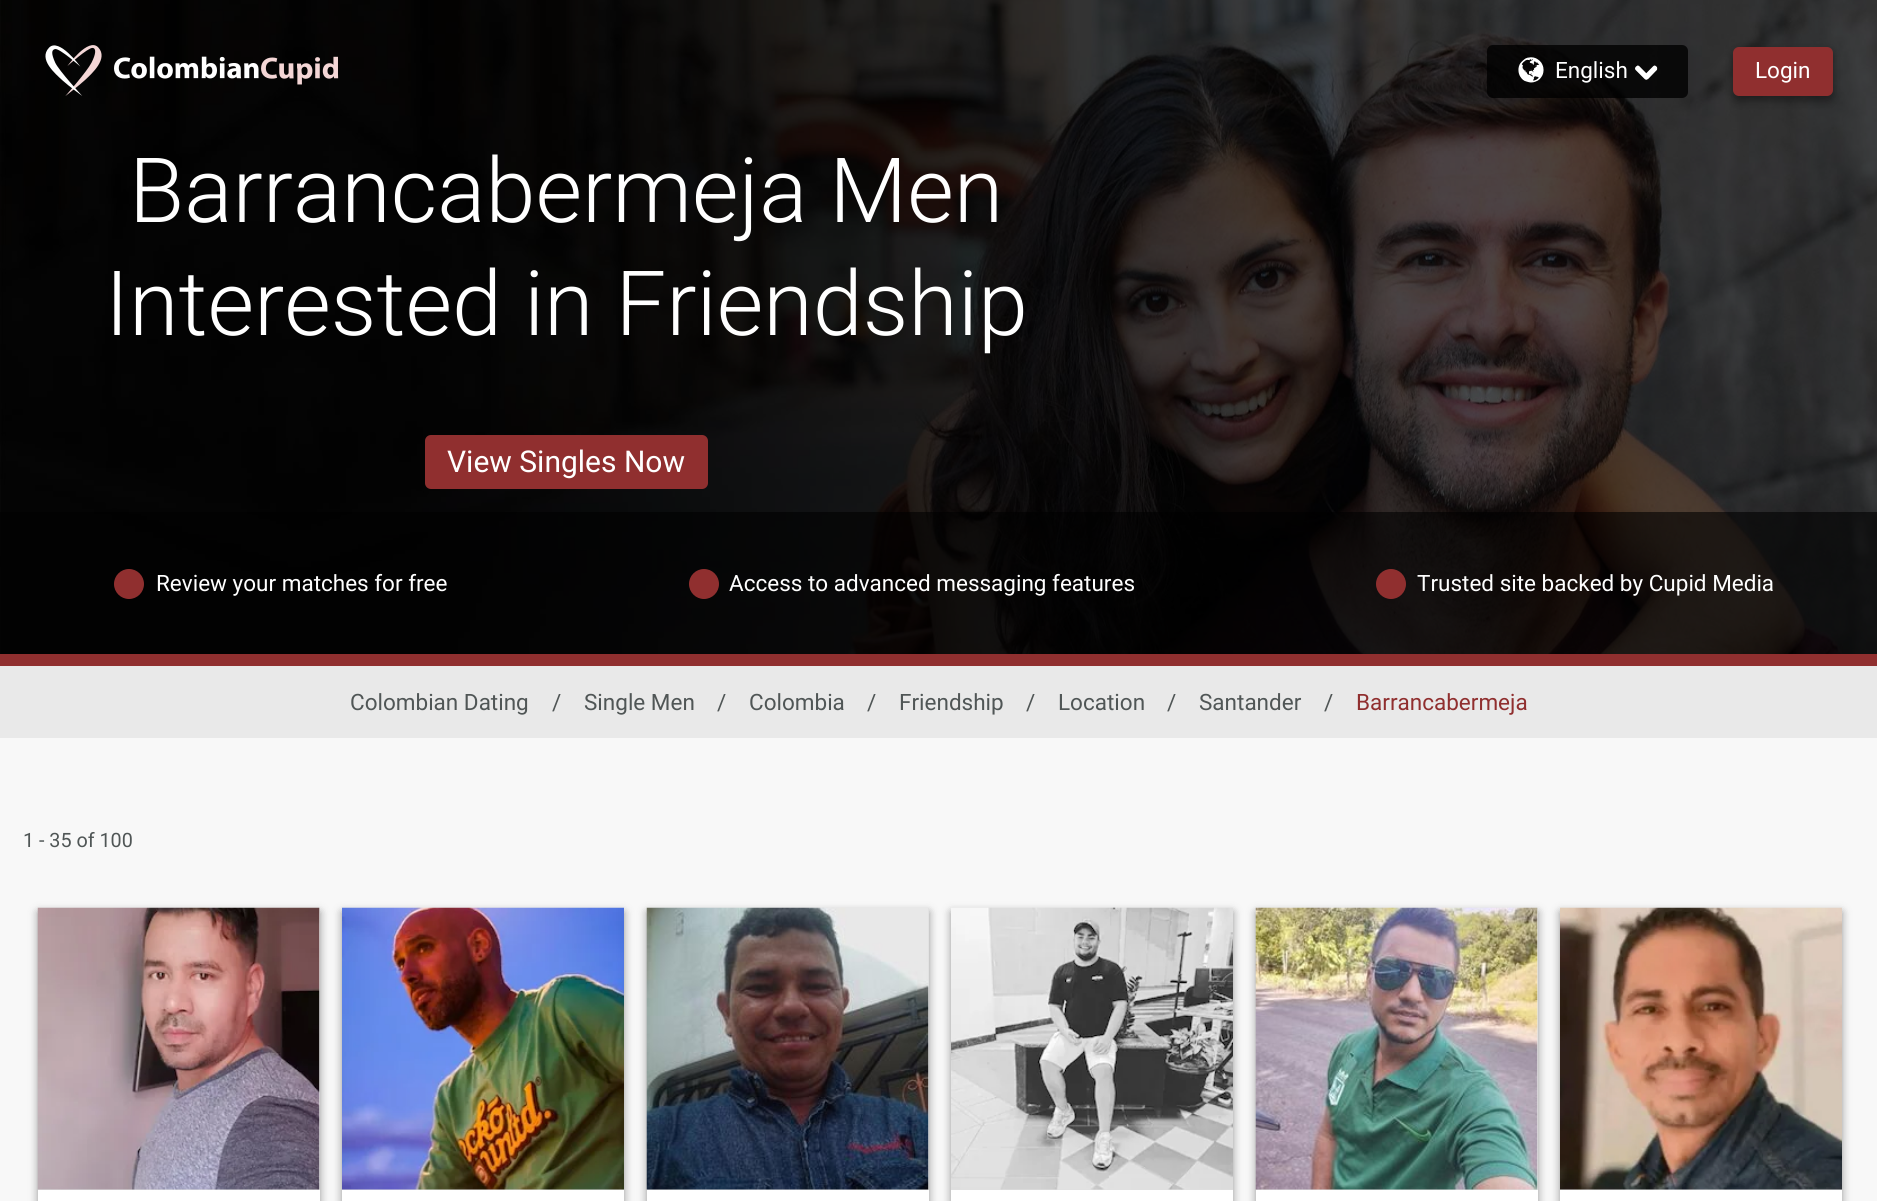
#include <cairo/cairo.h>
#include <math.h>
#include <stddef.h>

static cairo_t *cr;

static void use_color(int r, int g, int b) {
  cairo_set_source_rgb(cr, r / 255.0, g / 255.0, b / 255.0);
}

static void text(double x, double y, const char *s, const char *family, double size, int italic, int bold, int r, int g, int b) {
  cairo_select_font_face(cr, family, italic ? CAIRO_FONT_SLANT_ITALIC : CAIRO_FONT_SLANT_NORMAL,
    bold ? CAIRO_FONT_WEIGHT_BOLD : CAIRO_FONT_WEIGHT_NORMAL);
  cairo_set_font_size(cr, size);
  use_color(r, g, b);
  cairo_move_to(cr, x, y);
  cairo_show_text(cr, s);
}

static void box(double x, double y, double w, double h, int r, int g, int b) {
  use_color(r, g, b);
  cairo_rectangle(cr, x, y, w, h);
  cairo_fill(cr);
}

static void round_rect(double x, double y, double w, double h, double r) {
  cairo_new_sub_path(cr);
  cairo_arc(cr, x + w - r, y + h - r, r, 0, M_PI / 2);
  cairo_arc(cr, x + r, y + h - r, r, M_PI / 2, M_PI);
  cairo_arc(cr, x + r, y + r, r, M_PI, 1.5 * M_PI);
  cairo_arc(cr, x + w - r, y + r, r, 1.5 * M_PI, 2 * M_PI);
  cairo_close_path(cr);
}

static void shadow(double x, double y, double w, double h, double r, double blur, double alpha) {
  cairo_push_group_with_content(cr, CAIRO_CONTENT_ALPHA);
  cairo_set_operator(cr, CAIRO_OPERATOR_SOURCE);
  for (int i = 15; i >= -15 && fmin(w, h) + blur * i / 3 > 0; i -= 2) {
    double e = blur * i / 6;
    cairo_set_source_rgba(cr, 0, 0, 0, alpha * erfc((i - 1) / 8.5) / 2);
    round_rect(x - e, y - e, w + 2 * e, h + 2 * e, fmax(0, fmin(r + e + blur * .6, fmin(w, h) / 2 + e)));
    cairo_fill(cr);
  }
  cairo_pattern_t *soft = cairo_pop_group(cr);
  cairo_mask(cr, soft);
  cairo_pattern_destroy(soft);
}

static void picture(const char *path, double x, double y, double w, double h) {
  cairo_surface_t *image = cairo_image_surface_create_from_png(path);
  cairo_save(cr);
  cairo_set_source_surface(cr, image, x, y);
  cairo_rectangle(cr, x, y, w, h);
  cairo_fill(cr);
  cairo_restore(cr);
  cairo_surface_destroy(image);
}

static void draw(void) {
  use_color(248, 248, 248);
  cairo_paint(cr);
  picture("img_05.png", 0, 0, 1877, 654);
  picture("img_01.png", 45, 45, 57, 51);
  picture("img_02.png", 114, 56, 225, 29);
  cairo_set_source_rgba(cr, 0, 0, 0, 0.8);
  round_rect(1487, 45, 201, 53, 6);
  cairo_fill(cr);
  picture("img_03.png", 1518, 57, 26, 26);
  picture("img_04.png", 1635, 65, 23, 15);
  use_color(0, 0, 0);
  shadow(1733, 51, 100, 50, 6, 4.5, 0.4);
  use_color(144, 47, 47);
  round_rect(1733, 47, 100, 49, 6);
  cairo_fill(cr);
  round_rect(425, 435, 283, 54, 6);
  cairo_fill(cr);
  cairo_set_source_rgba(cr, 0, 0, 0, 0.6);
  cairo_rectangle(cr, 0, 512, 1877, 142);
  cairo_fill(cr);
  use_color(144, 47, 47);
  cairo_arc(cr, 129, 584, 15, 0, 2 * M_PI);
  cairo_fill(cr);
  cairo_arc(cr, 704, 584, 15, 0, 2 * M_PI);
  cairo_fill(cr);
  cairo_arc(cr, 1391, 584, 15, 0, 2 * M_PI);
  cairo_fill(cr);
  box(0, 654, 1877, 12, 144, 47, 47);
  box(0, 666, 1877, 72, 233, 233, 233);
  use_color(0, 0, 0);
  shadow(38, 912, 282, 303, 0, 4.5, 0.4);
  box(38, 1190, 282, 11, 255, 255, 255);
  box(38, 908, 282, 282, 224, 224, 224);
  picture("img_06.png", 37, 907, 283, 283);
  use_color(0, 0, 0);
  shadow(342, 912, 282, 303, 0, 4.5, 0.4);
  box(342, 1190, 282, 11, 255, 255, 255);
  box(342, 1189, 282, 1, 224, 224, 224);
  picture("img_07.png", 342, 907, 282, 283);
  use_color(0, 0, 0);
  shadow(647, 912, 282, 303, 0, 4.5, 0.4);
  box(647, 1190, 282, 11, 255, 255, 255);
  box(647, 908, 282, 282, 224, 224, 224);
  picture("img_08.png", 646, 907, 283, 283);
  use_color(0, 0, 0);
  shadow(951, 912, 282, 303, 0, 4.5, 0.4);
  box(951, 1190, 282, 11, 255, 255, 255);
  box(951, 1189, 282, 1, 224, 224, 224);
  picture("img_09.png", 951, 907, 282, 283);
  use_color(0, 0, 0);
  shadow(1256, 912, 282, 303, 0, 4.5, 0.4);
  box(1256, 1190, 282, 11, 255, 255, 255);
  box(1256, 908, 282, 282, 224, 224, 224);
  picture("img_10.png", 1255, 907, 283, 283);
  use_color(0, 0, 0);
  shadow(1560, 912, 282, 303, 0, 4.5, 0.4);
  box(1560, 1190, 282, 11, 255, 255, 255);
  box(1560, 1189, 282, 1, 224, 224, 224);
  picture("img_11.png", 1560, 907, 282, 283);
  text(1555, 78, "English", "Roboto", 22.5, 0, 0, 255, 255, 255);
  text(1755, 78, "Login", "Roboto", 22.5, 0, 0, 255, 255, 255);
  text(129, 222, "Barrancabermeja Men", "Roboto Light", 90, 0, 0, 255, 255, 255);
  text(105, 335, "Interested in Friendship", "Roboto Light", 90, 0, 0, 255, 255, 255);
  text(447, 472, "View Singles Now", "Roboto", 30, 0, 0, 255, 255, 255);
  text(156, 591, "Review your matches for free", "Roboto", 22.5, 0, 0, 255, 255, 255);
  text(729, 591, "Access to advanced messaging features", "Roboto", 22.5, 0, 0, 255, 255, 255);
  text(1417, 591, "Trusted site backed by Cupid Media", "Roboto", 22.5, 0, 0, 255, 255, 255);
  text(350, 710, "Colombian Dating", "Roboto", 22.5, 0, 0, 80, 86, 86);
  text(552, 710, "/", "Roboto", 22.5, 0, 0, 80, 86, 86);
  text(584, 710, "Single Men", "Roboto", 22.5, 0, 0, 80, 86, 86);
  text(717, 710, "/", "Roboto", 22.5, 0, 0, 80, 86, 86);
  text(749, 710, "Colombia", "Roboto", 22.5, 0, 0, 80, 86, 86);
  text(867, 710, "/", "Roboto", 22.5, 0, 0, 80, 86, 86);
  text(899, 710, "Friendship", "Roboto", 22.5, 0, 0, 80, 86, 86);
  text(1026, 710, "/", "Roboto", 22.5, 0, 0, 80, 86, 86);
  text(1058, 710, "Location", "Roboto", 22.5, 0, 0, 80, 86, 86);
  text(1167, 710, "/", "Roboto", 22.5, 0, 0, 80, 86, 86);
  text(1199, 710, "Santander", "Roboto", 22.5, 0, 0, 80, 86, 86);
  text(1324, 710, "/", "Roboto", 22.5, 0, 0, 80, 86, 86);
  text(1356, 710, "Barrancabermeja", "Roboto", 22.5, 0, 0, 144, 47, 47);
  text(23, 847, "1 - 35 of 100", "Roboto", 19.75, 0, 0, 80, 86, 86);
}

int main(void) {
  cairo_surface_t *surface = cairo_image_surface_create(CAIRO_FORMAT_RGB24, 1877, 1201);
  cr = cairo_create(surface);
  cairo_font_options_t *options = cairo_font_options_create();
  cairo_font_options_set_hint_metrics(options, CAIRO_HINT_METRICS_OFF);
  cairo_font_options_set_hint_style(options, CAIRO_HINT_STYLE_NONE);
  cairo_set_font_options(cr, options);
  cairo_set_miter_limit(cr, 4);
  draw();
  cairo_surface_write_to_png(surface, "out.png");
  cairo_font_options_destroy(options);
  cairo_destroy(cr);
  cairo_surface_destroy(surface);
  return 0;
}
